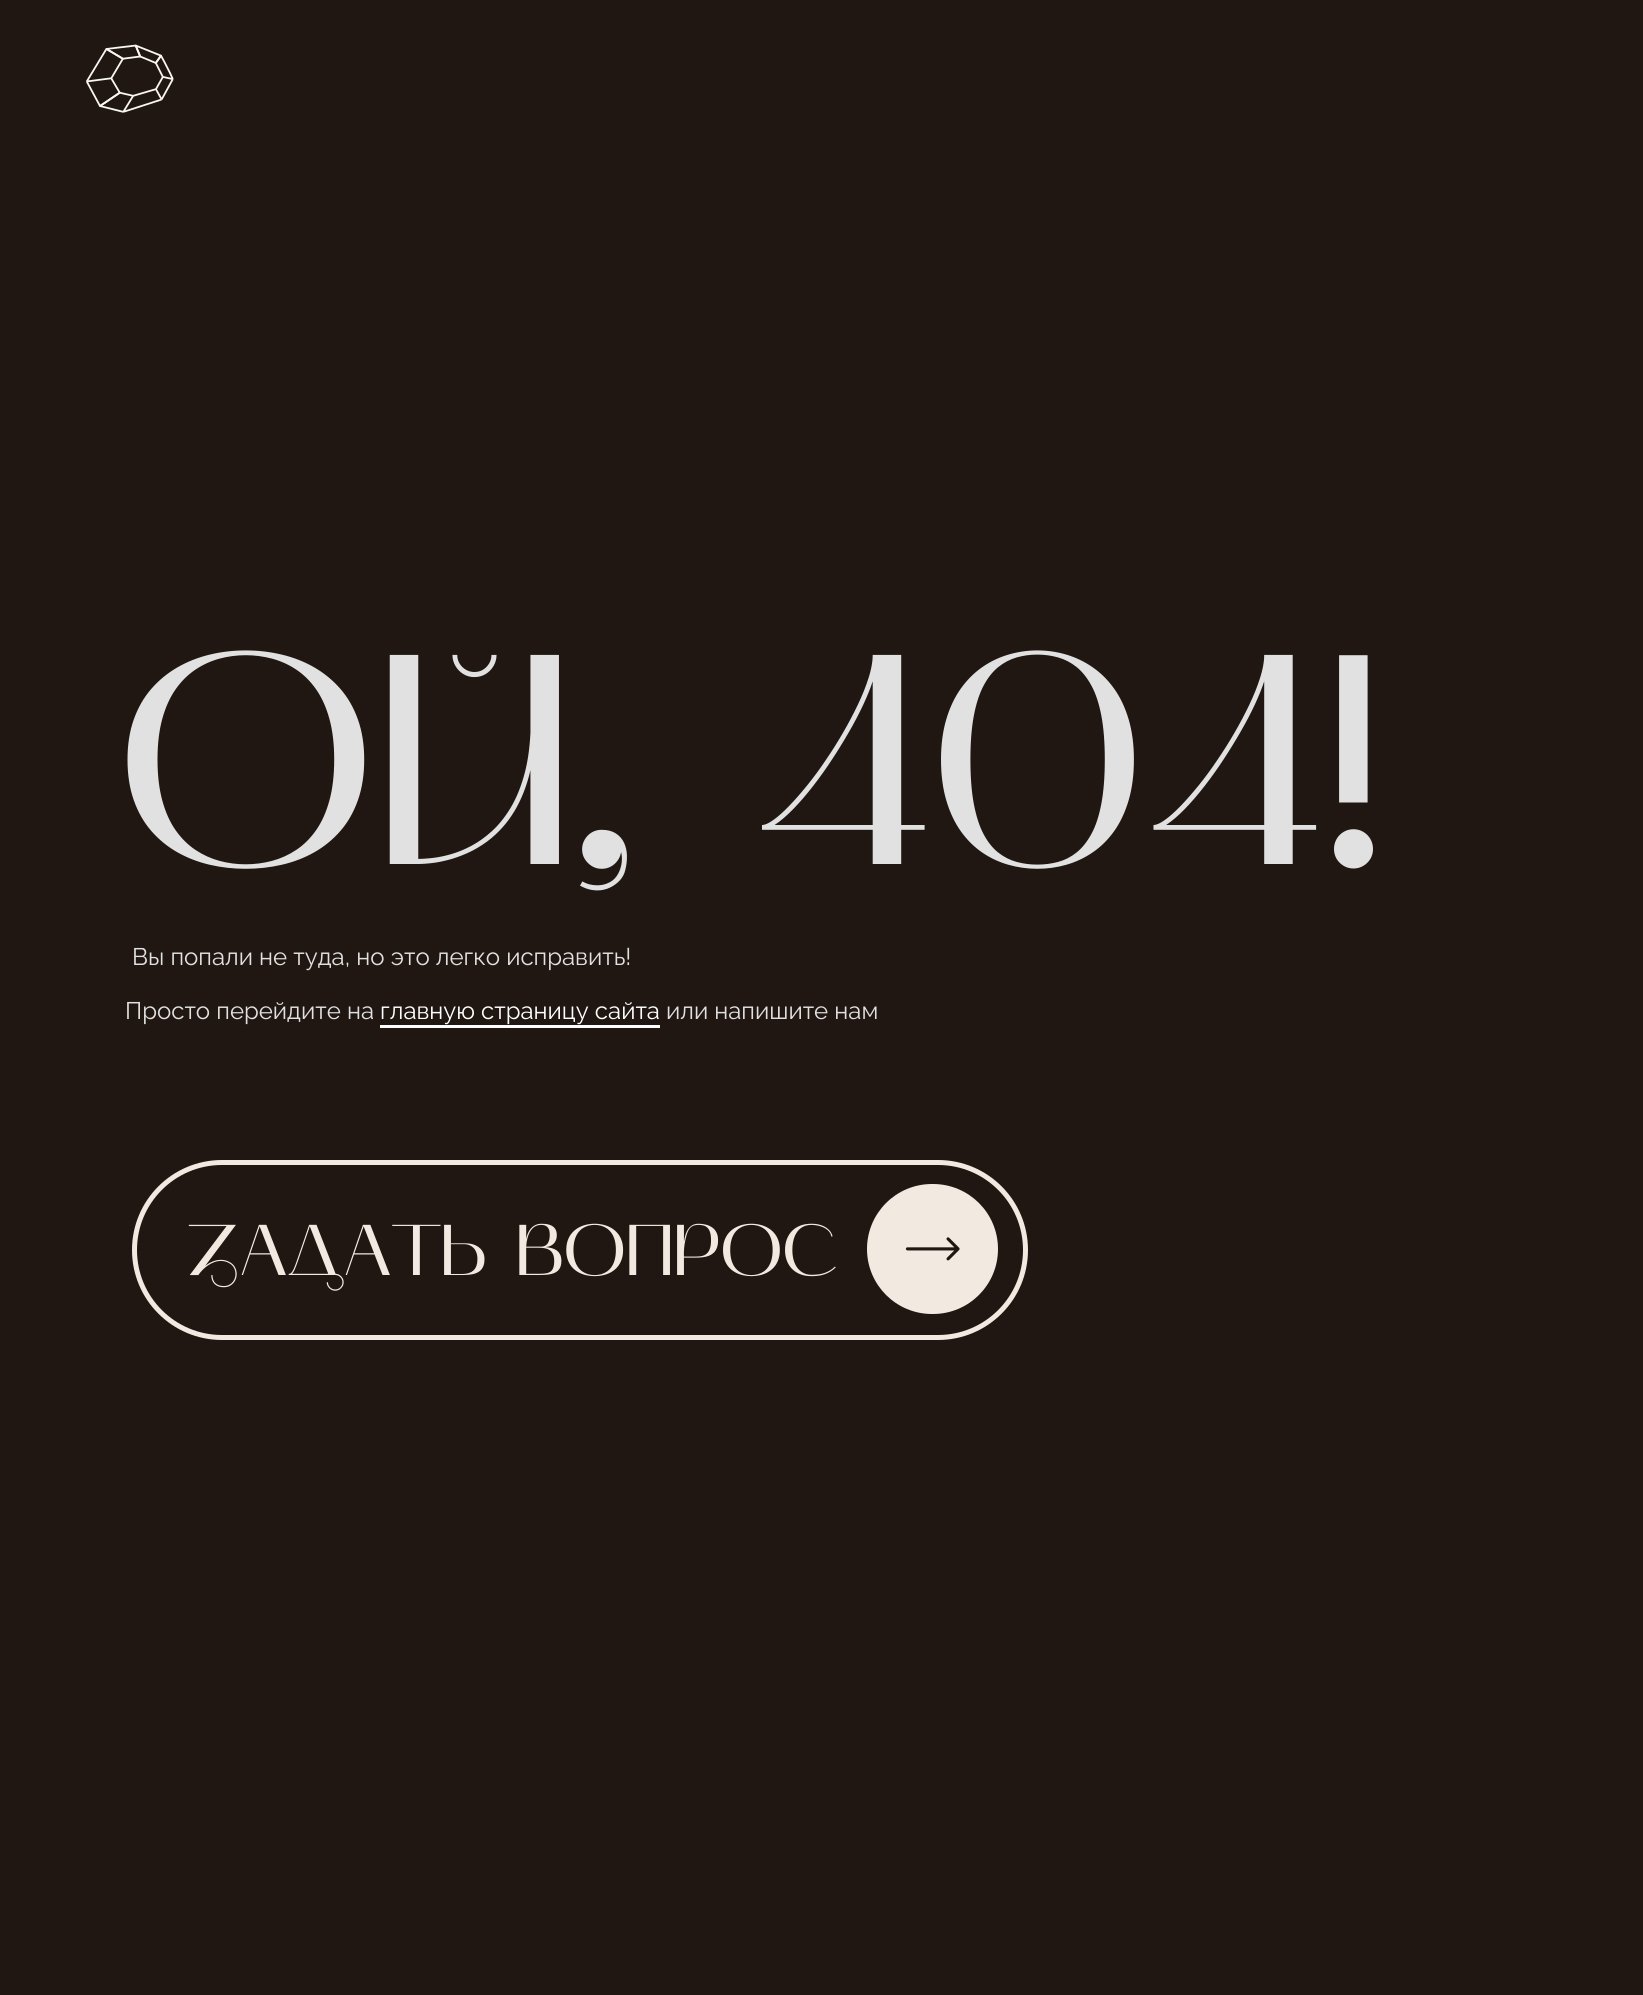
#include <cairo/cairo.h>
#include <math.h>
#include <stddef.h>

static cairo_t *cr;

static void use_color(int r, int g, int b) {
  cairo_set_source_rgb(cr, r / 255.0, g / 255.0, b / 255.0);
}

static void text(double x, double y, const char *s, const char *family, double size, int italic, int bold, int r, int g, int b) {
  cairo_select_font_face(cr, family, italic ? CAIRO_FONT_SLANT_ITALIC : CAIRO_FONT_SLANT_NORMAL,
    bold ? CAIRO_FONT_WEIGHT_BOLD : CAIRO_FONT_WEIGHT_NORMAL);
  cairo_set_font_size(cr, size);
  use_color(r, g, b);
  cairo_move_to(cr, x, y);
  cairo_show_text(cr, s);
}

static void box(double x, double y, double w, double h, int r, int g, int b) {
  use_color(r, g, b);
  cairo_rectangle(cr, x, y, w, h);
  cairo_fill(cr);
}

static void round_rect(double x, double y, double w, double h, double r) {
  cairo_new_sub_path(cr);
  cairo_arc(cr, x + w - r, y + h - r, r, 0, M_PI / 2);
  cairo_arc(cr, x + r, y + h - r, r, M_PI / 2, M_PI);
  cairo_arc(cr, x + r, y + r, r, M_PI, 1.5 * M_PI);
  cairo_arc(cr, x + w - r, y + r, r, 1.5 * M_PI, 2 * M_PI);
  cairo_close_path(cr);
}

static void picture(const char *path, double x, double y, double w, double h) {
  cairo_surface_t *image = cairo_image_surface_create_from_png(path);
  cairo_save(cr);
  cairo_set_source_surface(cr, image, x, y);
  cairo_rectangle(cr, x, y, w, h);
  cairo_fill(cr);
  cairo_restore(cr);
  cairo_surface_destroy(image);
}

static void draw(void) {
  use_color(32, 23, 18);
  cairo_paint(cr);
  picture("img_01.png", 86, 44, 88, 69);
  box(380, 1025, 280, 3, 255, 255, 255);
  round_rect(134.5, 1162.5, 891, 175, 87.5);
  use_color(242, 233, 225);
  cairo_set_line_width(cr, 5);
  cairo_stroke(cr);
  round_rect(867, 1184, 131, 130, 65);
  cairo_fill(cr);
  picture("img_02.png", 905, 1237, 55, 24);
  text(117, 864, "ОЙ, 404!", "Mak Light", 300, 0, 0, 225, 225, 225);
  text(132, 965, "Вы попали не туда, но это легко исправить!", "Raleway", 24, 0, 0, 225, 225, 225);
  text(125, 1019, "Просто перейдите на", "Raleway", 24, 0, 0, 225, 225, 225);
  text(380, 1019, "главную страницу сайта", "Raleway", 24, 0, 0, 255, 255, 255);
  text(666, 1019, "или напишите нам", "Raleway", 24, 0, 0, 225, 225, 225);
  text(186, 1275, "ЗАДАТЬ ВОПРОС", "Mak Light", 72, 0, 0, 242, 233, 225);
}

int main(void) {
  cairo_surface_t *surface = cairo_image_surface_create(CAIRO_FORMAT_RGB24, 1643, 1995);
  cr = cairo_create(surface);
  cairo_font_options_t *options = cairo_font_options_create();
  cairo_font_options_set_hint_metrics(options, CAIRO_HINT_METRICS_OFF);
  cairo_font_options_set_hint_style(options, CAIRO_HINT_STYLE_NONE);
  cairo_set_font_options(cr, options);
  cairo_set_miter_limit(cr, 4);
  draw();
  cairo_surface_write_to_png(surface, "out.png");
  cairo_font_options_destroy(options);
  cairo_destroy(cr);
  cairo_surface_destroy(surface);
  return 0;
}
